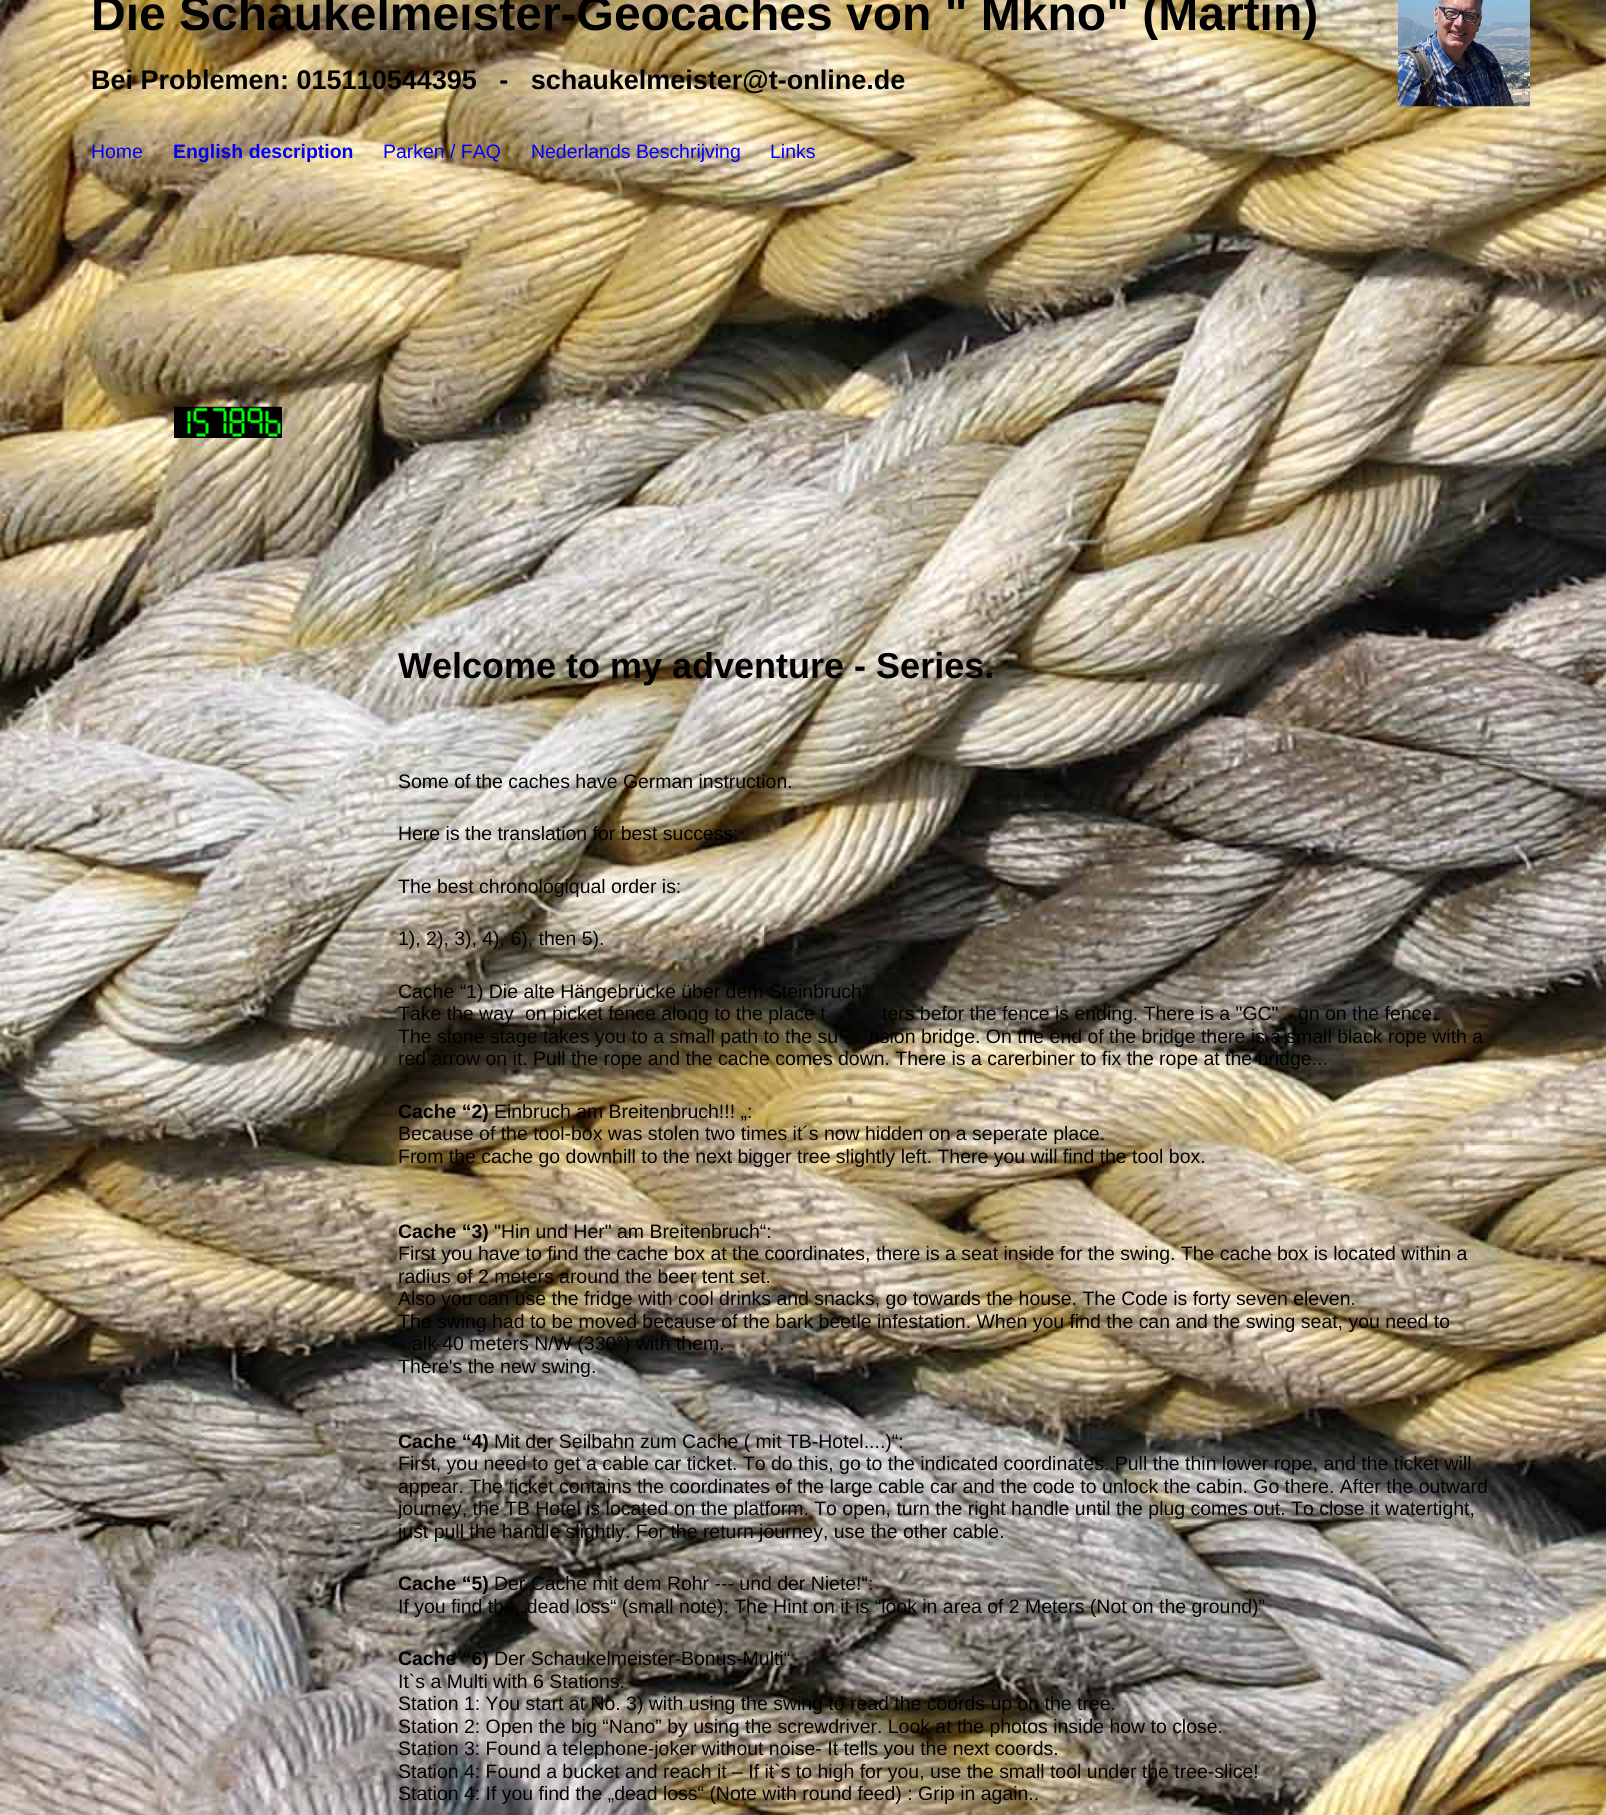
#include <cairo/cairo.h>
#include <math.h>
#include <stddef.h>

static cairo_t *cr;

static void use_color(int r, int g, int b) {
  cairo_set_source_rgb(cr, r / 255.0, g / 255.0, b / 255.0);
}

static void text(double x, double y, const char *s, const char *family, double size, int italic, int bold, int r, int g, int b) {
  cairo_select_font_face(cr, family, italic ? CAIRO_FONT_SLANT_ITALIC : CAIRO_FONT_SLANT_NORMAL,
    bold ? CAIRO_FONT_WEIGHT_BOLD : CAIRO_FONT_WEIGHT_NORMAL);
  cairo_set_font_size(cr, size);
  use_color(r, g, b);
  cairo_move_to(cr, x, y);
  cairo_show_text(cr, s);
}

static void picture(const char *path, double x, double y, double w, double h) {
  cairo_surface_t *image = cairo_image_surface_create_from_png(path);
  cairo_save(cr);
  cairo_set_source_surface(cr, image, x, y);
  cairo_rectangle(cr, x, y, w, h);
  cairo_fill(cr);
  cairo_restore(cr);
  cairo_surface_destroy(image);
}

static void draw(void) {
  use_color(255, 255, 255);
  cairo_paint(cr);
  picture("img_01.png", 0, 0, 1606, 1815);
  picture("img_02.png", 1398, 0, 132, 107);
  picture("img_03.png", 174, 406, 108, 32);
  text(91, 30, "Die Schaukelmeister-Geocaches von \" Mkno\" (Martin)", "Liberation Sans", 48, 0, 1, 0, 0, 0);
  text(91, 89, "Bei Problemen: 015110544395   -   schaukelmeister@t-online.de", "Liberation Sans", 27, 0, 1, 0, 0, 0);
  text(91, 158, "Home", "Liberation Sans", 19.45, 0, 0, 0, 0, 238);
  text(173, 158, "English description", "Liberation Sans", 19.45, 0, 1, 0, 0, 238);
  text(383, 158, "Parken / FAQ", "Liberation Sans", 19.45, 0, 0, 0, 0, 238);
  text(531, 158, "Nederlands Beschrijving", "Liberation Sans", 19.45, 0, 0, 0, 0, 238);
  text(770, 158, "Links", "Liberation Sans", 19.45, 0, 0, 0, 0, 238);
  text(398, 678, "Welcome to my adventure - Series.", "Liberation Sans", 36, 0, 1, 0, 0, 0);
  text(398, 788, "Some of the caches have German instruction.", "Liberation Sans", 19.45, 0, 0, 0, 0, 0);
  text(398, 840, "Here is the translation for best success:", "Liberation Sans", 19.45, 0, 0, 0, 0, 0);
  text(398, 893, "The best chronologiqual order is:", "Liberation Sans", 19.45, 0, 0, 0, 0, 0);
  text(398, 945, "1), 2), 3), 4), 6), then 5).", "Liberation Sans", 19.45, 0, 0, 0, 0, 0);
  text(398, 998, "Cache “1) Die alte Hängebrücke über dem Steinbruch“", "Liberation Sans", 19.45, 0, 0, 0, 0, 0);
  text(398, 1020, "Take the way", "Liberation Sans", 19.45, 0, 0, 0, 0, 0);
  text(525, 1020, "on picket fence along to the place t", "Liberation Sans", 19.45, 0, 0, 0, 0, 0);
  text(882, 1020, "ters befor the fence is ending. There is a \"GC\"", "Liberation Sans", 19.45, 0, 0, 0, 0, 0);
  text(1298, 1020, "gn on the fence.", "Liberation Sans", 19.45, 0, 0, 0, 0, 0);
  text(398, 1043, "The stone stage takes you to a small path to the su", "Liberation Sans", 19.45, 0, 0, 0, 0, 0);
  text(869, 1043, "nsion bridge. On the end of the bridge there is a small black rope with a", "Liberation Sans", 19.45, 0, 0, 0, 0, 0);
  text(398, 1065, "red arrow on it. Pull the rope and the cache comes down. There is a carerbiner to fix the rope at the bridge...", "Liberation Sans", 19.45, 0, 0, 0, 0, 0);
  text(398, 1118, "Cache “2)", "Liberation Sans", 19.45, 0, 1, 0, 0, 0);
  text(494, 1118, "Einbruch am Breitenbruch!!! „:", "Liberation Sans", 19.45, 0, 0, 0, 0, 0);
  text(398, 1140, "Because of the tool-box was stolen two times it´s now hidden on a seperate place.", "Liberation Sans", 19.45, 0, 0, 0, 0, 0);
  text(398, 1163, "From the cache go downhill to the next bigger tree slightly left. There you will find the tool box.", "Liberation Sans", 19.45, 0, 0, 0, 0, 0);
  text(398, 1238, "Cache “3)", "Liberation Sans", 19.45, 0, 1, 0, 0, 0);
  text(494, 1238, "\"Hin und Her\" am Breitenbruch“:", "Liberation Sans", 19.45, 0, 0, 0, 0, 0);
  text(398, 1260, "First you have to find the cache box at the coordinates, there is a seat inside for the swing. The cache box is located within a", "Liberation Sans", 19.45, 0, 0, 0, 0, 0);
  text(398, 1283, "radius of 2 meters around the beer tent set.", "Liberation Sans", 19.45, 0, 0, 0, 0, 0);
  text(398, 1305, "Also you can use the fridge with cool drinks and snacks, go towards the house. The Code is forty seven eleven.", "Liberation Sans", 19.45, 0, 0, 0, 0, 0);
  text(398, 1328, "The swing had to be moved because of the bark beetle infestation. When you find the can and the swing seat, you need to", "Liberation Sans", 19.45, 0, 0, 0, 0, 0);
  text(412, 1350, "alk 40 meters N/W (330°) with them.", "Liberation Sans", 19.45, 0, 0, 0, 0, 0);
  text(398, 1373, "There's the new swing.", "Liberation Sans", 19.45, 0, 0, 0, 0, 0);
  text(398, 1448, "Cache “4)", "Liberation Sans", 19.45, 0, 1, 0, 0, 0);
  text(494, 1448, "Mit der Seilbahn zum Cache ( mit TB-Hotel....)“:", "Liberation Sans", 19.45, 0, 0, 0, 0, 0);
  text(398, 1470, "First, you need to get a cable car ticket. To do this, go to the indicated coordinates. Pull the thin lower rope, and the ticket will", "Liberation Sans", 19.45, 0, 0, 0, 0, 0);
  text(398, 1493, "appear. The ticket contains the coordinates of the large cable car and the code to unlock the cabin. Go there. After the outward", "Liberation Sans", 19.45, 0, 0, 0, 0, 0);
  text(398, 1515, "journey, the TB Hotel is located on the platform. To open, turn the right handle until the plug comes out. To close it watertight,", "Liberation Sans", 19.45, 0, 0, 0, 0, 0);
  text(398, 1538, "just pull the handle slightly. For the return journey, use the other cable.", "Liberation Sans", 19.45, 0, 0, 0, 0, 0);
  text(398, 1590, "Cache “5)", "Liberation Sans", 19.45, 0, 1, 0, 0, 0);
  text(494, 1590, "Der Cache mit dem Rohr --- und der Niete!“:", "Liberation Sans", 19.45, 0, 0, 0, 0, 0);
  text(398, 1613, "If you find the „dead loss“ (small note): The Hint on it is “look in area of 2 Meters (Not on the ground)”", "Liberation Sans", 19.45, 0, 0, 0, 0, 0);
  text(398, 1665, "Cache “6)", "Liberation Sans", 19.45, 0, 1, 0, 0, 0);
  text(494, 1665, "Der Schaukelmeister-Bonus-Multi“", "Liberation Sans", 19.45, 0, 0, 0, 0, 0);
  text(398, 1688, "It`s a Multi with 6 Stations.", "Liberation Sans", 19.45, 0, 0, 0, 0, 0);
  text(398, 1710, "Station 1: You start at No. 3) with using the swing to read the coords up on the tree.", "Liberation Sans", 19.45, 0, 0, 0, 0, 0);
  text(398, 1733, "Station 2: Open the big “Nano” by using the screwdriver. Look at the photos inside how to close.", "Liberation Sans", 19.45, 0, 0, 0, 0, 0);
  text(398, 1755, "Station 3: Found a telephone-joker without noise- It tells you the next coords.", "Liberation Sans", 19.45, 0, 0, 0, 0, 0);
  text(398, 1778, "Station 4: Found a bucket and reach it – If it`s to high for you, use the small tool under the tree-slice!", "Liberation Sans", 19.45, 0, 0, 0, 0, 0);
  text(398, 1800, "Station 4: If you find the „dead loss“ (Note with round feed) : Grip in again..", "Liberation Sans", 19.45, 0, 0, 0, 0, 0);
}

int main(void) {
  cairo_surface_t *surface = cairo_image_surface_create(CAIRO_FORMAT_RGB24, 1606, 1815);
  cr = cairo_create(surface);
  cairo_font_options_t *options = cairo_font_options_create();
  cairo_font_options_set_hint_metrics(options, CAIRO_HINT_METRICS_OFF);
  cairo_font_options_set_hint_style(options, CAIRO_HINT_STYLE_NONE);
  cairo_set_font_options(cr, options);
  cairo_set_miter_limit(cr, 4);
  draw();
  cairo_surface_write_to_png(surface, "out.png");
  cairo_font_options_destroy(options);
  cairo_destroy(cr);
  cairo_surface_destroy(surface);
  return 0;
}
